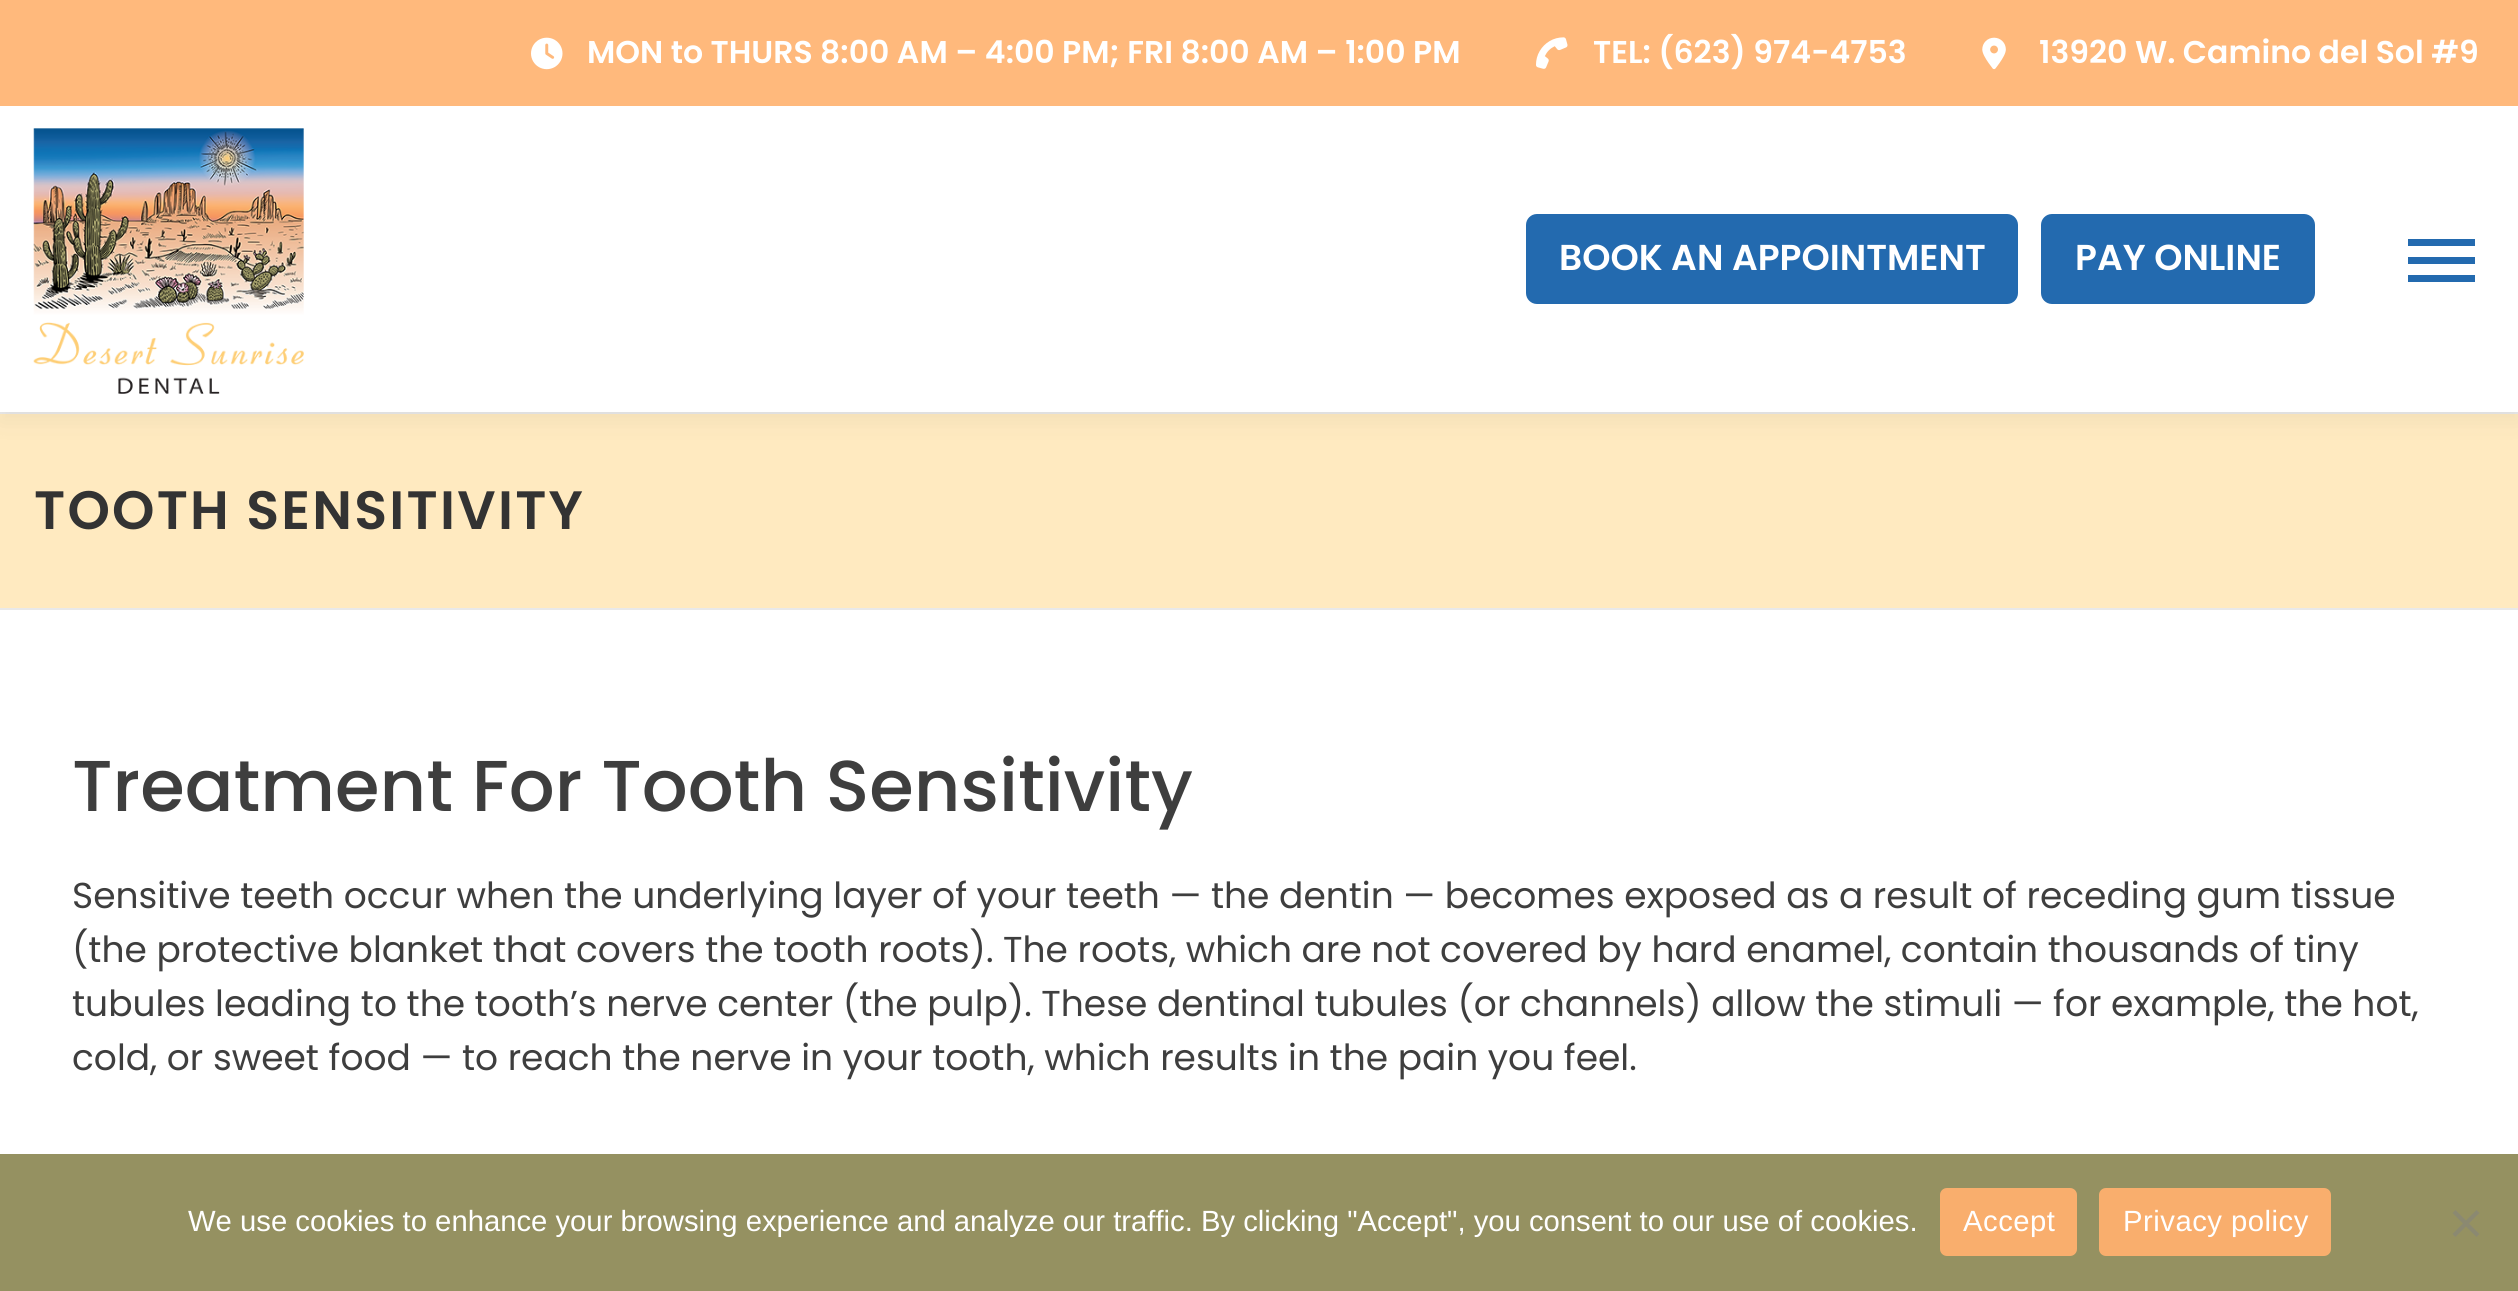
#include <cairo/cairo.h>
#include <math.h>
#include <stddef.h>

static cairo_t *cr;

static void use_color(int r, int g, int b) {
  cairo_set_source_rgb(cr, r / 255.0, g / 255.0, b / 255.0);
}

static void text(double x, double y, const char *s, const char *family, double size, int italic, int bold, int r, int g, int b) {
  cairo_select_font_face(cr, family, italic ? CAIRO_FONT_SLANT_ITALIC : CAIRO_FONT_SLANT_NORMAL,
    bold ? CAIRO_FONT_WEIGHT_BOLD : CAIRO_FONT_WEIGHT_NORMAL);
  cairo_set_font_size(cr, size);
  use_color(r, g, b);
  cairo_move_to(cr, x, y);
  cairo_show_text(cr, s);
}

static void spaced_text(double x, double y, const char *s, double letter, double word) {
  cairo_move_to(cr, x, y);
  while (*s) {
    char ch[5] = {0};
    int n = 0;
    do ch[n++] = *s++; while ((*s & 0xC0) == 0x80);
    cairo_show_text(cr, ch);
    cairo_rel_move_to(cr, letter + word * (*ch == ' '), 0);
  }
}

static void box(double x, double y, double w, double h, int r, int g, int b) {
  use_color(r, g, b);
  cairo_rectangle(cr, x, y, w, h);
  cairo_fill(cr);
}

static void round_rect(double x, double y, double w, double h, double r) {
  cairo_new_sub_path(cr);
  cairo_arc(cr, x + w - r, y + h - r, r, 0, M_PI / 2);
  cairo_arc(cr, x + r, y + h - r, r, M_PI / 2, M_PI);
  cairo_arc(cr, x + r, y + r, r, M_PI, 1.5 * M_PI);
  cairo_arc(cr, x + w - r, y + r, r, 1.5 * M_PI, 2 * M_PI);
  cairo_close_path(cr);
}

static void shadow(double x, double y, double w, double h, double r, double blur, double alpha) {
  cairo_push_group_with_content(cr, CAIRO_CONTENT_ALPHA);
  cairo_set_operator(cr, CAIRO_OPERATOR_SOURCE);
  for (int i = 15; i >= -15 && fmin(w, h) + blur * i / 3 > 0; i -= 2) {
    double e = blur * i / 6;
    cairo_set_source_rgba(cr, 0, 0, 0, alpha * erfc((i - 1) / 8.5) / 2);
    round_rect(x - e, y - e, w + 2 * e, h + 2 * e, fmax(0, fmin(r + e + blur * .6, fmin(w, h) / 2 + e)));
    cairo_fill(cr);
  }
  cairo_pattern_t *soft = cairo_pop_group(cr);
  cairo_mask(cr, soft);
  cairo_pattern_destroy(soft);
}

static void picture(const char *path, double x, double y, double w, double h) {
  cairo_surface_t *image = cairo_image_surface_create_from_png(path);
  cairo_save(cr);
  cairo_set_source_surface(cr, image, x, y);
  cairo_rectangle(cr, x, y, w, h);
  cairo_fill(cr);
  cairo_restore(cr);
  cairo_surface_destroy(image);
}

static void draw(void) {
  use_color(255, 255, 255);
  cairo_paint(cr);
  box(0, 414, 2518, 194, 255, 234, 192);
  box(0, 412, 2518, 2, 233, 233, 233);
  use_color(50, 50, 50);
  shadow(0, 11, 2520, 412, 0, 11, 0.06);
  box(0, 106, 2518, 306, 255, 255, 255);
  box(0, 0, 2518, 106, 255, 185, 124);
  picture("img_01.png", 531, 37, 32, 33);
  picture("img_02.png", 1536, 37, 32, 32);
  picture("img_03.png", 1982, 37, 24, 33);
  picture("img_04.png", 33, 128, 271, 266);
  use_color(35, 106, 175);
  round_rect(1526, 214, 492, 90, 11);
  cairo_fill(cr);
  round_rect(2041, 214, 274, 90, 11);
  cairo_fill(cr);
  box(2408, 257, 67, 7, 35, 106, 175);
  box(2408, 239, 67, 7, 35, 106, 175);
  box(2408, 275, 67, 7, 35, 106, 175);
  box(0, 608, 2518, 2, 233, 233, 233);
  box(0, 1154, 2518, 137, 149, 145, 97);
  use_color(249, 174, 109);
  round_rect(1940, 1188, 137, 68, 7);
  cairo_fill(cr);
  round_rect(2099, 1188, 232, 68, 7);
  cairo_fill(cr);
  use_color(139, 137, 113);
  cairo_new_path(cr);
  cairo_move_to(cr, 2476.5, 1210);
  cairo_line_to(cr, 2479.5, 1213);
  cairo_line_to(cr, 2455.5, 1237);
  cairo_line_to(cr, 2452.5, 1234);
  cairo_close_path(cr);
  cairo_fill(cr);
  cairo_new_path(cr);
  cairo_move_to(cr, 2452.5, 1213);
  cairo_line_to(cr, 2455.5, 1210);
  cairo_line_to(cr, 2479.5, 1234);
  cairo_line_to(cr, 2476.5, 1237);
  cairo_close_path(cr);
  cairo_fill(cr);
  text(587, 63, "MON to THURS 8:00 AM – 4:00 PM; FRI 8:00 AM – 1:00 PM", "Poppins SemiBold", 31.5, 0, 0, 255, 255, 255);
  text(1593, 63, "TEL: (623) 974-4753", "Poppins SemiBold", 31.5, 0, 0, 255, 255, 255);
  text(2039, 63, "13920 W. Camino del Sol #9", "Poppins SemiBold", 31.5, 0, 0, 255, 255, 255);
  text(1559, 270, "BOOK AN APPOINTMENT", "Poppins SemiBold", 36, 0, 0, 255, 255, 255);
  text(2075, 270, "PAY ONLINE", "Poppins SemiBold", 36, 0, 0, 255, 255, 255);
  cairo_set_font_size(cr, 54);
  use_color(51, 51, 51);
  spaced_text(34, 529, "TOOTH SENSITIVITY", 2.25, 0);
  text(72, 811, "Treatment For Tooth Sensitivity", "Poppins Medium", 72, 0, 0, 62, 62, 62);
  text(72, 908, "Sensitive teeth occur when the underlying layer of your teeth — the dentin — becomes exposed as a result of receding gum tissue", "Poppins", 36, 0, 0, 62, 62, 62);
  text(72, 962, "(the protective blanket that covers the tooth roots). The roots, which are not covered by hard enamel, contain thousands of tiny", "Poppins", 36, 0, 0, 62, 62, 62);
  text(72, 1016, "tubules leading to the tooth’s nerve center (the pulp). These dentinal tubules (or channels) allow the stimuli — for example, the hot,", "Poppins", 36, 0, 0, 62, 62, 62);
  text(72, 1070, "cold, or sweet food — to reach the nerve in your tooth, which results in the pain you feel.", "Poppins", 36, 0, 0, 62, 62, 62);
  text(188, 1231, "We use cookies to enhance your browsing experience and analyze our traffic. By clicking \"Accept\", you consent to our use of cookies.", "Liberation Sans", 29.25, 0, 0, 255, 255, 255);
  spaced_text(1963, 1231, "Accept", 0.5, 0);
  spaced_text(2123, 1231, "Privacy policy", 0.5, 0);
}

int main(void) {
  cairo_surface_t *surface = cairo_image_surface_create(CAIRO_FORMAT_RGB24, 2518, 1291);
  cr = cairo_create(surface);
  cairo_font_options_t *options = cairo_font_options_create();
  cairo_font_options_set_hint_metrics(options, CAIRO_HINT_METRICS_OFF);
  cairo_font_options_set_hint_style(options, CAIRO_HINT_STYLE_NONE);
  cairo_set_font_options(cr, options);
  cairo_set_miter_limit(cr, 4);
  draw();
  cairo_surface_write_to_png(surface, "out.png");
  cairo_font_options_destroy(options);
  cairo_destroy(cr);
  cairo_surface_destroy(surface);
  return 0;
}
